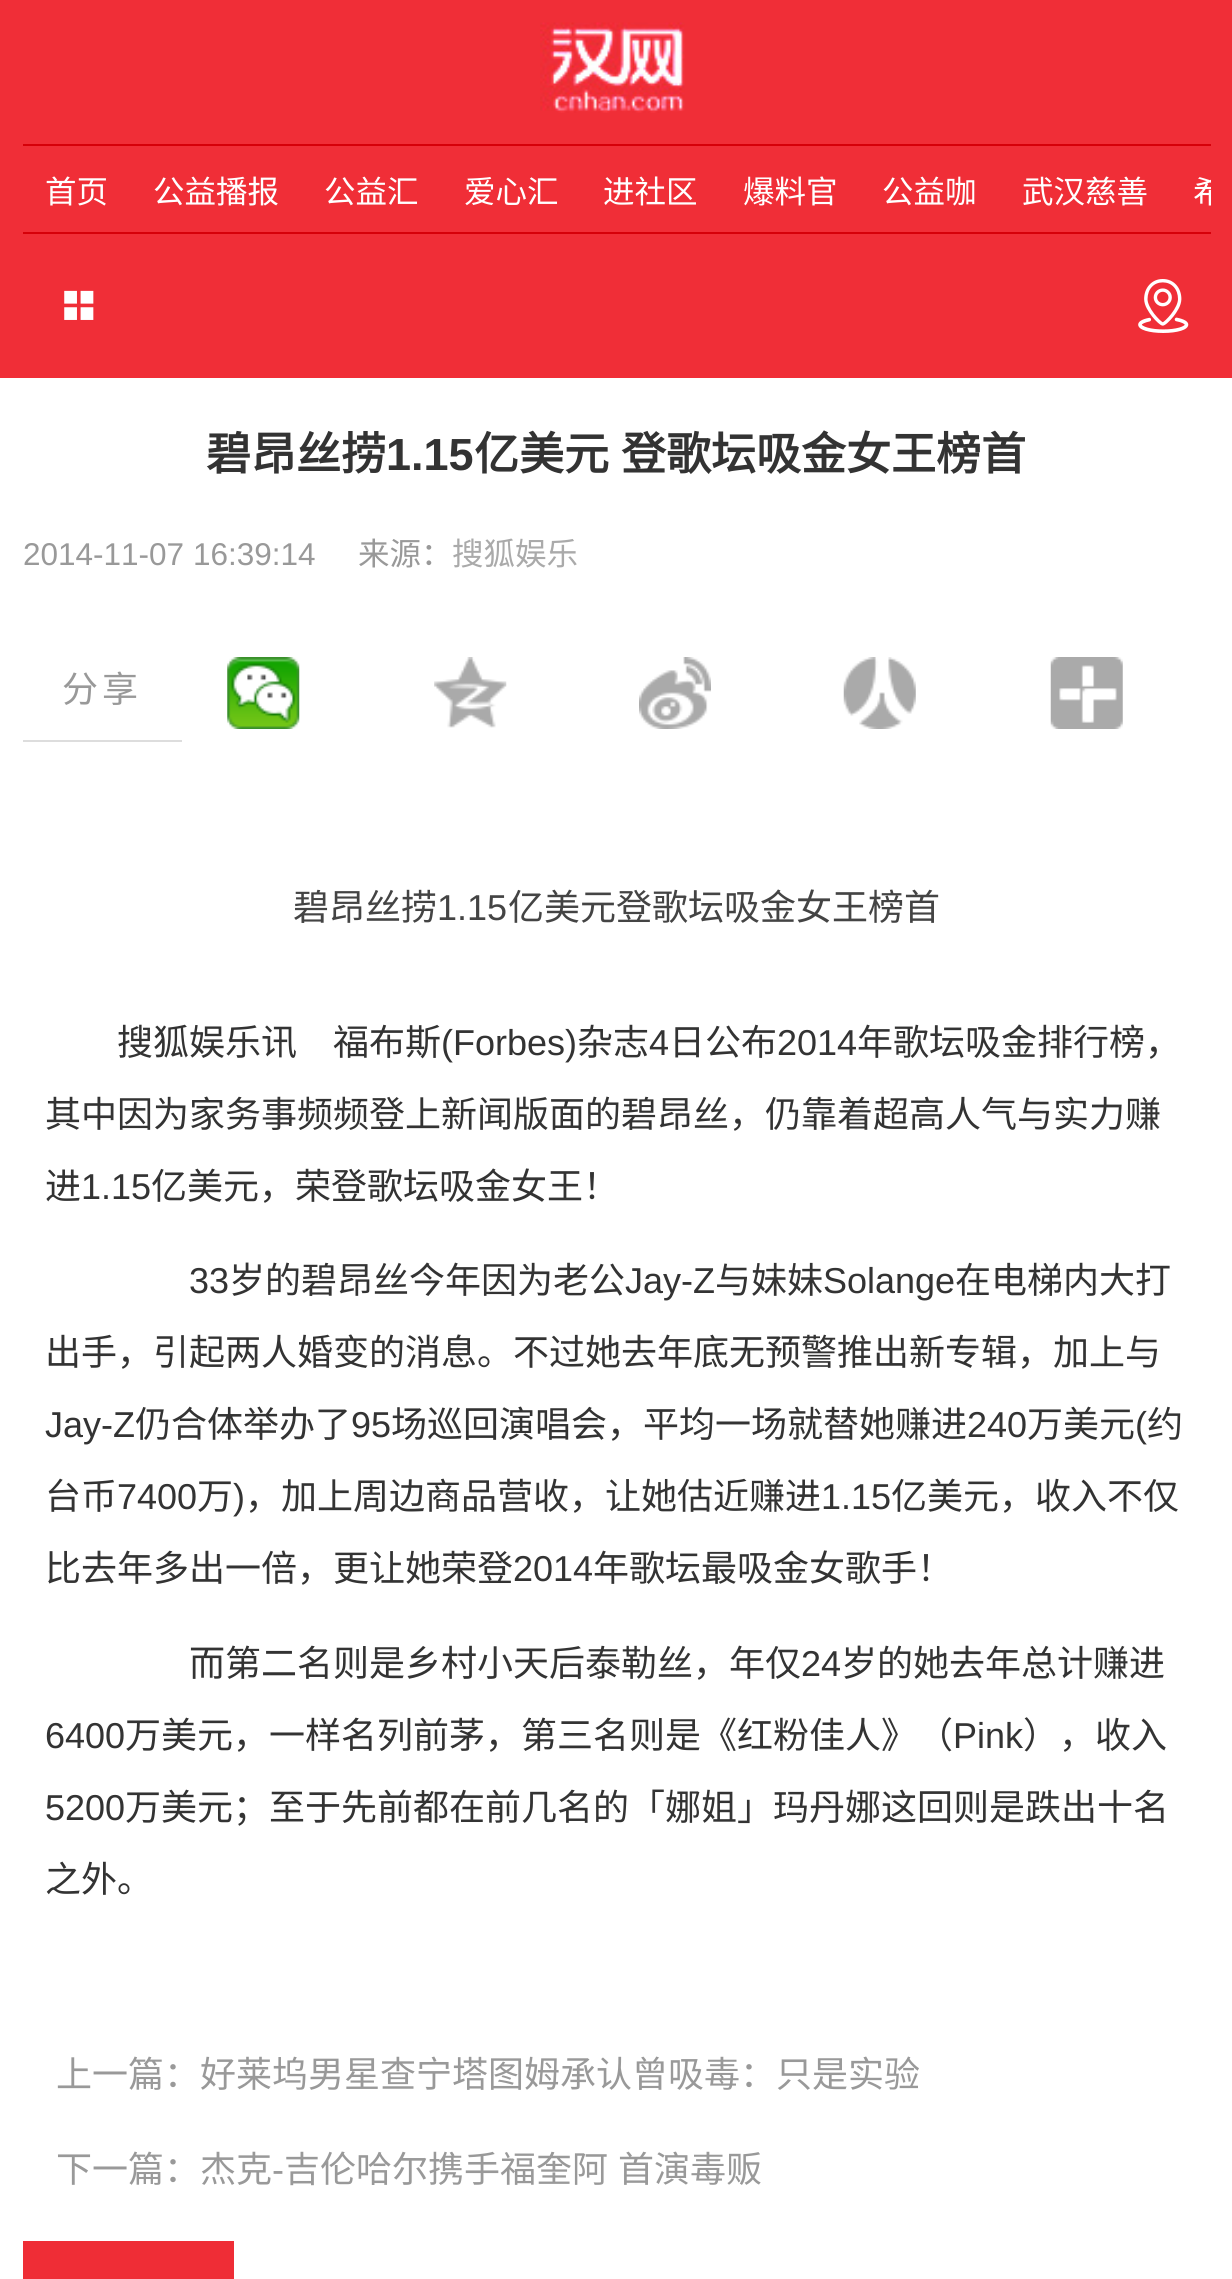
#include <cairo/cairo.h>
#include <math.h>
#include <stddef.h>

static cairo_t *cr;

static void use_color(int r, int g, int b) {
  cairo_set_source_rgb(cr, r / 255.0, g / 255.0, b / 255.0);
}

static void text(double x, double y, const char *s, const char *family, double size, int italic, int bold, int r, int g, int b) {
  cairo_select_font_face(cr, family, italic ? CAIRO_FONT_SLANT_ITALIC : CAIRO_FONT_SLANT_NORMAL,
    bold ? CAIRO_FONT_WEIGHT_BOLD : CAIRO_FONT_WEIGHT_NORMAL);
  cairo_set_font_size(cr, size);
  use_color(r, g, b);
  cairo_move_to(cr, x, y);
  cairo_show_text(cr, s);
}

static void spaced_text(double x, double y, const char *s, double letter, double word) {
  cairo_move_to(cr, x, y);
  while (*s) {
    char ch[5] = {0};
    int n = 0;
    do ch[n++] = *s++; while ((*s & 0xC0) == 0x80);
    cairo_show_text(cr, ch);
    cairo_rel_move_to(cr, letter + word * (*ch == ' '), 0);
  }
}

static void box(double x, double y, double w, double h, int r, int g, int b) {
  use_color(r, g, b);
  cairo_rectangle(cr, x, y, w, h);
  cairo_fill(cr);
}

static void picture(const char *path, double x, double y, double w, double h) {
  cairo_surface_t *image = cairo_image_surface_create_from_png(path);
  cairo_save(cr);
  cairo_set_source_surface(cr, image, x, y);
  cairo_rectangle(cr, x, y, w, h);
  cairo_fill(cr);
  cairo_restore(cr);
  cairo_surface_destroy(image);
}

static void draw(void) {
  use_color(255, 255, 255);
  cairo_paint(cr);
  box(0, 0, 1232, 378, 240, 46, 55);
  picture("img_01.png", 540, 22, 145, 91);
  box(23, 144, 1188, 2, 214, 0, 9);
  box(23, 232, 1188, 2, 214, 0, 9);
  picture("img_02.png", 64, 290, 30, 30);
  picture("img_03.png", 1138, 279, 51, 54);
  box(23, 740, 159, 2, 221, 221, 221);
  picture("img_04.png", 227, 657, 73, 72);
  picture("img_05.png", 434, 657, 73, 71);
  picture("img_06.png", 639, 657, 72, 72);
  picture("img_07.png", 843, 657, 73, 72);
  picture("img_08.png", 1050, 657, 73, 72);
  box(23, 2241, 211, 38, 239, 45, 54);
  text(45, 203, "首页", "Noto Sans CJK SC", 31.5, 0, 0, 255, 255, 255);
  text(153, 203, "公益播报", "Noto Sans CJK SC", 31.5, 0, 0, 255, 255, 255);
  text(324, 203, "公益汇", "Noto Sans CJK SC", 31.5, 0, 0, 255, 255, 255);
  text(464, 203, "爱心汇", "Noto Sans CJK SC", 31.5, 0, 0, 255, 255, 255);
  text(603, 203, "进社区", "Noto Sans CJK SC", 31.5, 0, 0, 255, 255, 255);
  text(743, 203, "爆料官", "Noto Sans CJK SC", 31.5, 0, 0, 255, 255, 255);
  text(882, 203, "公益咖", "Noto Sans CJK SC", 31.5, 0, 0, 255, 255, 255);
  text(1022, 203, "武汉慈善", "Noto Sans CJK SC", 31.5, 0, 0, 255, 255, 255);
  cairo_save(cr);
  cairo_rectangle(cr, 23, 146, 1188, 86);
  cairo_clip(cr);
  text(1193, 203, "希", "Noto Sans CJK SC", 31.5, 0, 0, 255, 255, 255);
  cairo_restore(cr);
  text(206, 470, "碧昂丝捞", "Noto Sans CJK SC", 45, 0, 1, 51, 51, 51);
  text(386, 470, "1.15", "Liberation Sans", 45, 0, 1, 51, 51, 51);
  cairo_select_font_face(cr, "Noto Sans CJK SC", CAIRO_FONT_SLANT_NORMAL, CAIRO_FONT_WEIGHT_BOLD);
  spaced_text(474, 470, "亿美元 登歌坛吸金女王榜首", 0, 2);
  text(23, 565, "2014-11-07 16:39:14", "Liberation Sans", 31.5, 0, 0, 153, 153, 153);
  text(358, 565, "来源：", "Noto Sans CJK SC", 31.5, 0, 0, 153, 153, 153);
  text(452, 565, "搜狐娱乐", "Noto Sans CJK SC", 31.5, 0, 0, 170, 170, 170);
  cairo_set_font_size(cr, 36);
  use_color(153, 153, 153);
  spaced_text(62, 702, "分享", 4, 0);
  text(293, 920, "碧昂丝捞", "Noto Sans CJK SC", 36, 0, 0, 68, 68, 68);
  text(437, 920, "1.15", "Liberation Sans", 36, 0, 0, 68, 68, 68);
  text(508, 920, "亿美元登歌坛吸金女王榜首", "Noto Sans CJK SC", 36, 0, 0, 68, 68, 68);
  text(117, 1055, "搜狐娱乐讯　福布斯", "Noto Sans CJK SC", 36, 0, 0, 51, 51, 51);
  text(441, 1055, "(Forbes)", "Liberation Sans", 36, 0, 0, 51, 51, 51);
  text(577, 1055, "杂志", "Noto Sans CJK SC", 36, 0, 0, 51, 51, 51);
  text(649, 1055, "4", "Liberation Sans", 36, 0, 0, 51, 51, 51);
  text(669, 1055, "日公布", "Noto Sans CJK SC", 36, 0, 0, 51, 51, 51);
  text(777, 1055, "2014", "Liberation Sans", 36, 0, 0, 51, 51, 51);
  text(857, 1055, "年歌坛吸金排行榜，", "Noto Sans CJK SC", 36, 0, 0, 51, 51, 51);
  text(45, 1127, "其中因为家务事频频登上新闻版面的碧昂丝，仍靠着超高人气与实力赚", "Noto Sans CJK SC", 36, 0, 0, 51, 51, 51);
  text(45, 1199, "进", "Noto Sans CJK SC", 36, 0, 0, 51, 51, 51);
  text(81, 1199, "1.15", "Liberation Sans", 36, 0, 0, 51, 51, 51);
  text(151, 1199, "亿美元，荣登歌坛吸金女王！", "Noto Sans CJK SC", 36, 0, 0, 51, 51, 51);
  text(189, 1293, "33", "Liberation Sans", 36, 0, 0, 51, 51, 51);
  text(229, 1293, "岁的碧昂丝今年因为老公", "Noto Sans CJK SC", 36, 0, 0, 51, 51, 51);
  text(625, 1293, "Jay-Z", "Liberation Sans", 36, 0, 0, 51, 51, 51);
  text(715, 1293, "与妹妹", "Noto Sans CJK SC", 36, 0, 0, 51, 51, 51);
  text(823, 1293, "Solange", "Liberation Sans", 36, 0, 0, 51, 51, 51);
  text(955, 1293, "在电梯内大打", "Noto Sans CJK SC", 36, 0, 0, 51, 51, 51);
  text(45, 1365, "出手，引起两人婚变的消息。不过她去年底无预警推出新专辑，加上与", "Noto Sans CJK SC", 36, 0, 0, 51, 51, 51);
  text(45, 1437, "Jay-Z", "Liberation Sans", 36, 0, 0, 51, 51, 51);
  text(135, 1437, "仍合体举办了", "Noto Sans CJK SC", 36, 0, 0, 51, 51, 51);
  text(351, 1437, "95", "Liberation Sans", 36, 0, 0, 51, 51, 51);
  text(391, 1437, "场巡回演唱会，平均一场就替她赚进", "Noto Sans CJK SC", 36, 0, 0, 51, 51, 51);
  text(967, 1437, "240", "Liberation Sans", 36, 0, 0, 51, 51, 51);
  text(1027, 1437, "万美元", "Noto Sans CJK SC", 36, 0, 0, 51, 51, 51);
  text(1135, 1437, "(", "Liberation Sans", 36, 0, 0, 51, 51, 51);
  text(1147, 1437, "约", "Noto Sans CJK SC", 36, 0, 0, 51, 51, 51);
  text(45, 1509, "台币", "Noto Sans CJK SC", 36, 0, 0, 51, 51, 51);
  text(117, 1509, "7400", "Liberation Sans", 36, 0, 0, 51, 51, 51);
  text(197, 1509, "万", "Noto Sans CJK SC", 36, 0, 0, 51, 51, 51);
  text(233, 1509, ")", "Liberation Sans", 36, 0, 0, 51, 51, 51);
  text(245, 1509, "，加上周边商品营收，让她估近赚进", "Noto Sans CJK SC", 36, 0, 0, 51, 51, 51);
  text(821, 1509, "1.15", "Liberation Sans", 36, 0, 0, 51, 51, 51);
  text(891, 1509, "亿美元，收入不仅", "Noto Sans CJK SC", 36, 0, 0, 51, 51, 51);
  text(45, 1581, "比去年多出一倍，更让她荣登", "Noto Sans CJK SC", 36, 0, 0, 51, 51, 51);
  text(513, 1581, "2014", "Liberation Sans", 36, 0, 0, 51, 51, 51);
  text(593, 1581, "年歌坛最吸金女歌手！", "Noto Sans CJK SC", 36, 0, 0, 51, 51, 51);
  text(189, 1676, "而第二名则是乡村小天后泰勒丝，年仅", "Noto Sans CJK SC", 36, 0, 0, 51, 51, 51);
  text(801, 1676, "24", "Liberation Sans", 36, 0, 0, 51, 51, 51);
  text(841, 1676, "岁的她去年总计赚进", "Noto Sans CJK SC", 36, 0, 0, 51, 51, 51);
  text(45, 1748, "6400", "Liberation Sans", 36, 0, 0, 51, 51, 51);
  text(125, 1748, "万美元，一样名列前茅，第三名则是《红粉佳人》（", "Noto Sans CJK SC", 36, 0, 0, 51, 51, 51);
  text(953, 1748, "Pink", "Liberation Sans", 36, 0, 0, 51, 51, 51);
  text(1023, 1748, "），收入", "Noto Sans CJK SC", 36, 0, 0, 51, 51, 51);
  text(45, 1820, "5200", "Liberation Sans", 36, 0, 0, 51, 51, 51);
  text(125, 1820, "万美元；至于先前都在前几名的「娜姐」玛丹娜这回则是跌出十名", "Noto Sans CJK SC", 36, 0, 0, 51, 51, 51);
  text(45, 1892, "之外。", "Noto Sans CJK SC", 36, 0, 0, 51, 51, 51);
  text(56, 2087, "上一篇：好莱坞男星查宁塔图姆承认曾吸毒：只是实验", "Noto Sans CJK SC", 36, 0, 0, 153, 153, 153);
  text(56, 2182, "下一篇：杰克", "Noto Sans CJK SC", 36, 0, 0, 153, 153, 153);
  text(272, 2182, "-", "Liberation Sans", 36, 0, 0, 153, 153, 153);
  cairo_select_font_face(cr, "Noto Sans CJK SC", CAIRO_FONT_SLANT_NORMAL, CAIRO_FONT_WEIGHT_NORMAL);
  spaced_text(284, 2182, "吉伦哈尔携手福奎阿 首演毒贩", 0, 2);
}

int main(void) {
  cairo_surface_t *surface = cairo_image_surface_create(CAIRO_FORMAT_RGB24, 1232, 2279);
  cr = cairo_create(surface);
  cairo_font_options_t *options = cairo_font_options_create();
  cairo_font_options_set_hint_metrics(options, CAIRO_HINT_METRICS_OFF);
  cairo_font_options_set_hint_style(options, CAIRO_HINT_STYLE_NONE);
  cairo_set_font_options(cr, options);
  cairo_set_miter_limit(cr, 4);
  draw();
  cairo_surface_write_to_png(surface, "out.png");
  cairo_font_options_destroy(options);
  cairo_destroy(cr);
  cairo_surface_destroy(surface);
  return 0;
}
